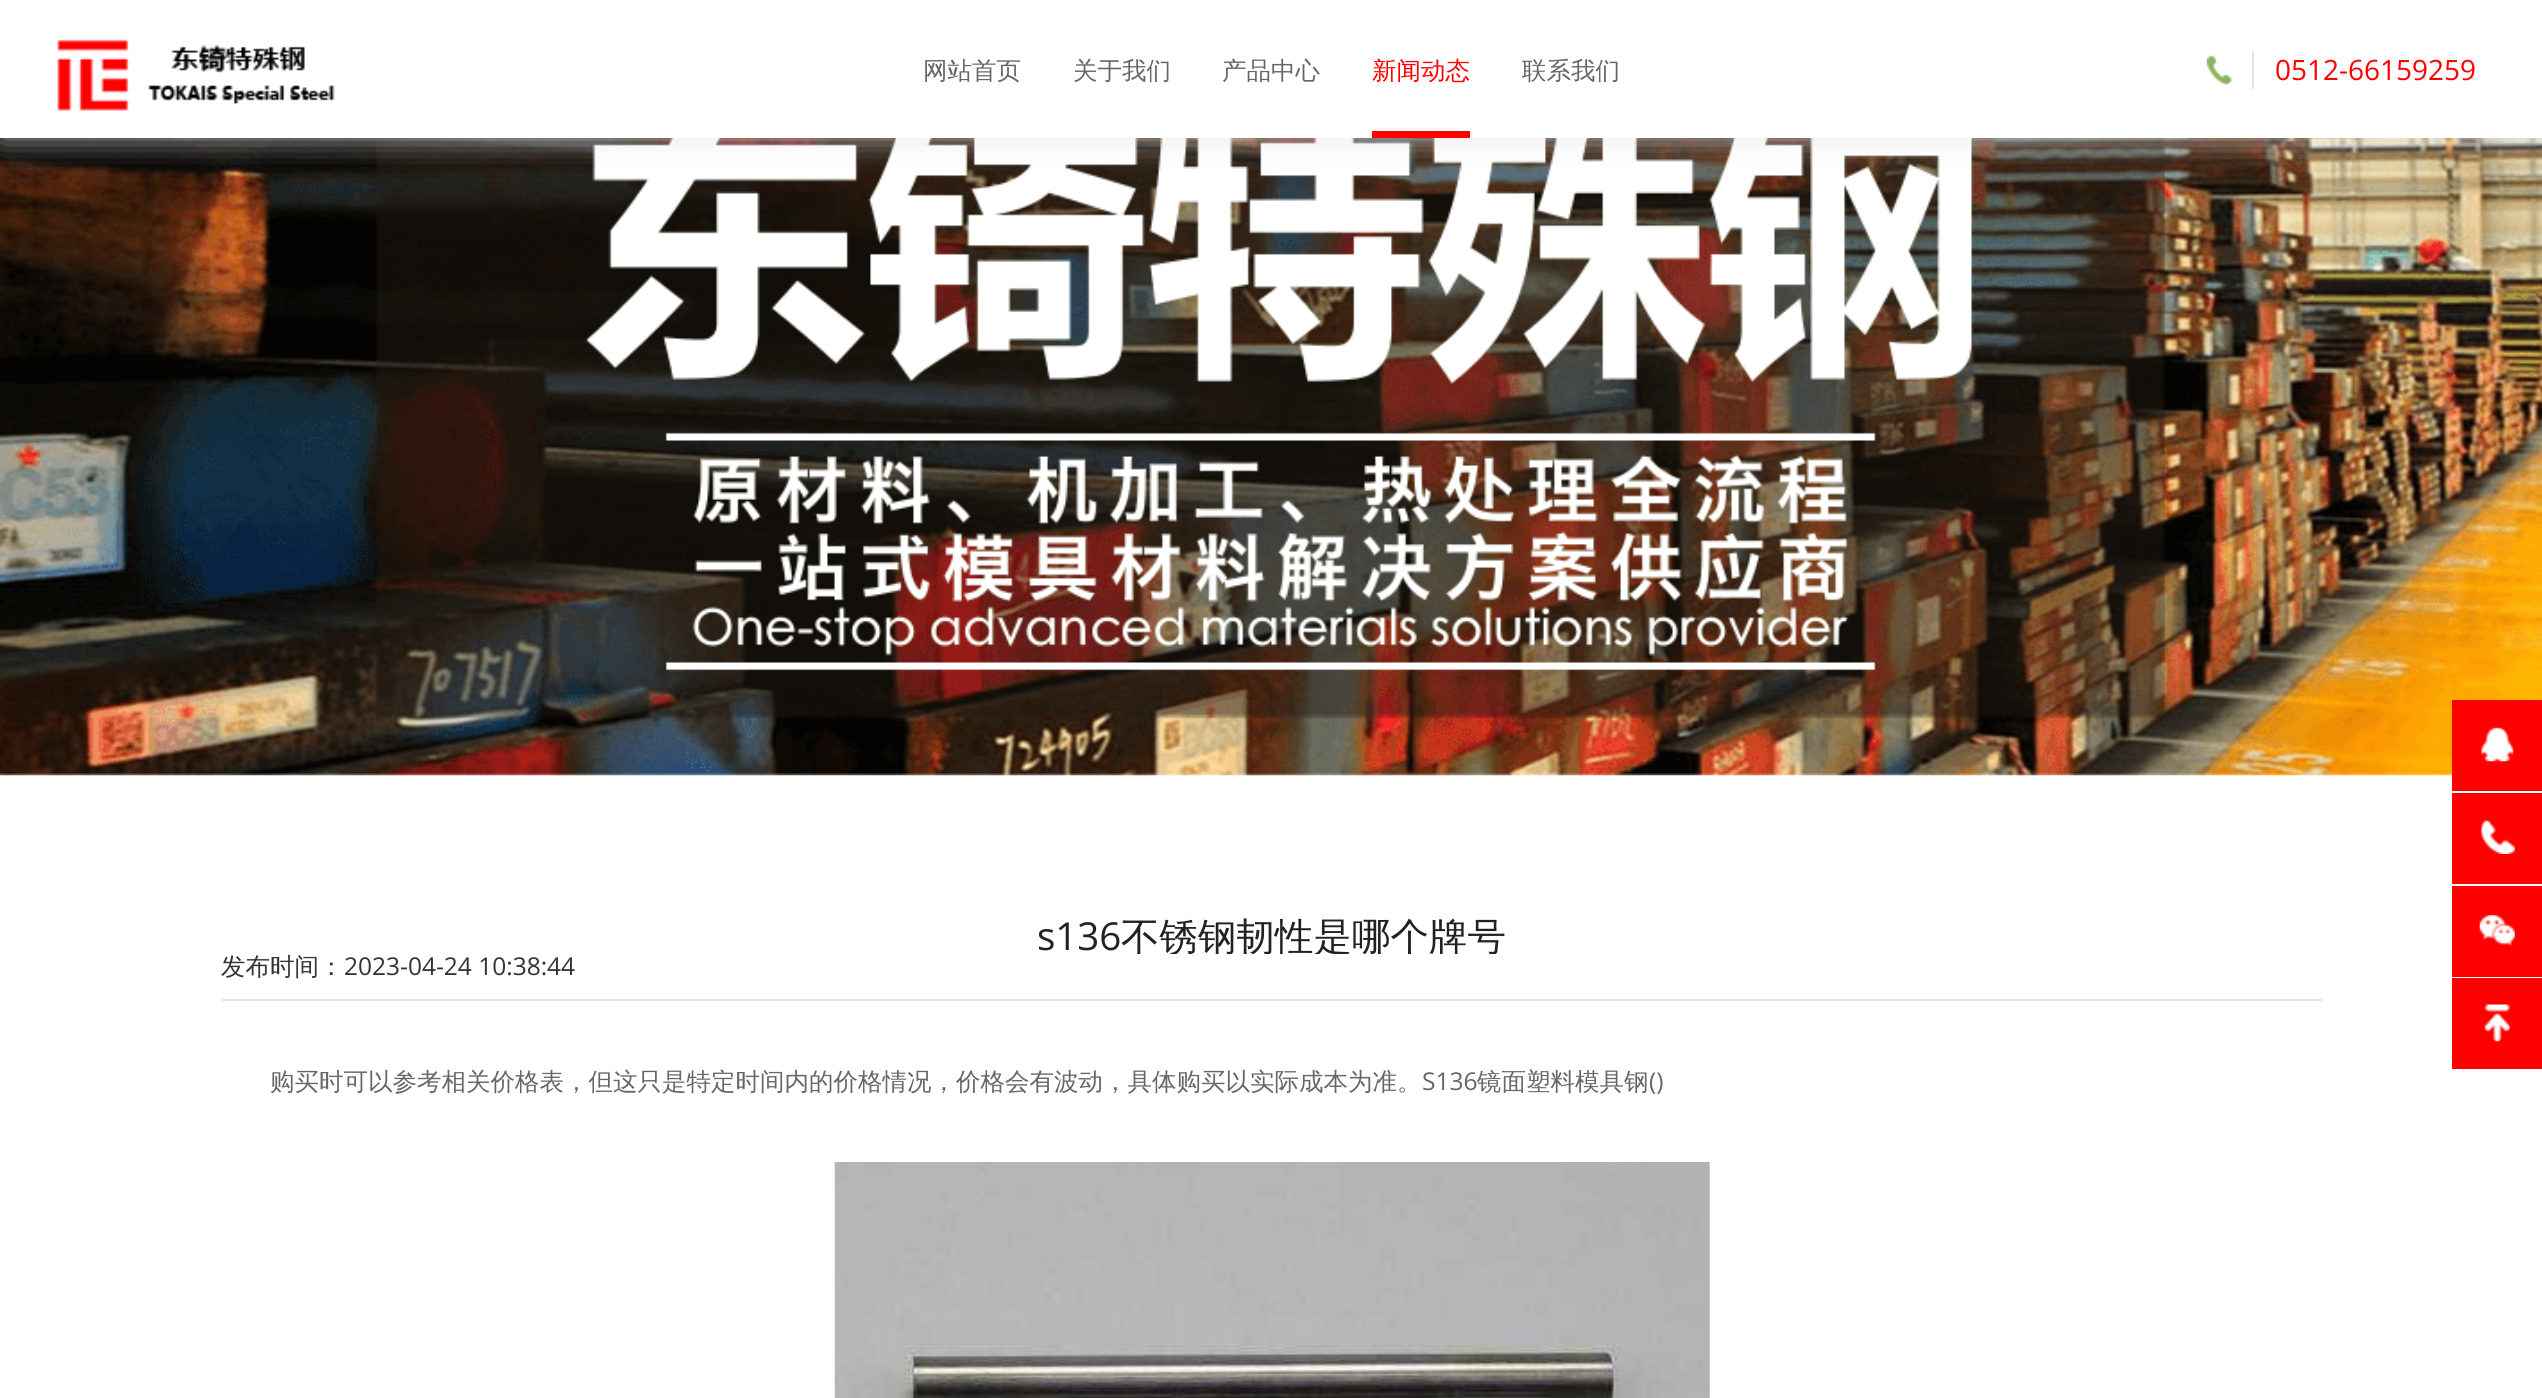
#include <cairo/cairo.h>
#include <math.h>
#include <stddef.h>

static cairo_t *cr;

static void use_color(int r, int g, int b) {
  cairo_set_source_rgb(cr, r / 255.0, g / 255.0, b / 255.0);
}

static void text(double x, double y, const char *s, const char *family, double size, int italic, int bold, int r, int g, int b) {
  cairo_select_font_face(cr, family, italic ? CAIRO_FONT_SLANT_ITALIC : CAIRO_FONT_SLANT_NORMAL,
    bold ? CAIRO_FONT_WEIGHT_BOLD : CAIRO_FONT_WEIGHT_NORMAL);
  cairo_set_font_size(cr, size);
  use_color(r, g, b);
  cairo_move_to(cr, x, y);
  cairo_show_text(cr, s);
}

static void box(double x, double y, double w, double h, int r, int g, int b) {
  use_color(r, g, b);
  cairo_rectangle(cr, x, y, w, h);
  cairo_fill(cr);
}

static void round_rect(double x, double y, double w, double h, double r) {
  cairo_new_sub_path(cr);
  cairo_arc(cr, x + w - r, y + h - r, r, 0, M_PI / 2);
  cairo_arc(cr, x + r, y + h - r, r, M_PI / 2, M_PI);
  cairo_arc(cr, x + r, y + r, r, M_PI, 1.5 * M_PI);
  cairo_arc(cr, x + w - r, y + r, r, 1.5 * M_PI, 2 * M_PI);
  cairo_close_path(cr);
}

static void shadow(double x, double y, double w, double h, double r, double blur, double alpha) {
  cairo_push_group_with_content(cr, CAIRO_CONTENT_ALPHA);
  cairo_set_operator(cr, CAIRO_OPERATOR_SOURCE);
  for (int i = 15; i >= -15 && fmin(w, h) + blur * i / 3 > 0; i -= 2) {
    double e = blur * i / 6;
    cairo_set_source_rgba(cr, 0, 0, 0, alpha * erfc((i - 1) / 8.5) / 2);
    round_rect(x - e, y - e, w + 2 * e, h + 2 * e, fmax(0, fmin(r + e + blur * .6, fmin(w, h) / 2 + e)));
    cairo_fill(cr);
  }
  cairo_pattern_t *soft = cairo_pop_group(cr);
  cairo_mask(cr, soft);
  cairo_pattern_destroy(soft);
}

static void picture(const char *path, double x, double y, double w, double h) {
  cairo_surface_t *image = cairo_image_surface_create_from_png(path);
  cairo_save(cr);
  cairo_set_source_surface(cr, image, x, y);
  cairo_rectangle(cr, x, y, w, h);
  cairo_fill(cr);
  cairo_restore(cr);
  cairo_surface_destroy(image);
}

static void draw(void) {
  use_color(255, 255, 255);
  cairo_paint(cr);
  picture("img_03.png", 0, 138, 2542, 638);
  use_color(229, 229, 229);
  shadow(0, 0, 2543, 138, 0, 17.5, 0.8);
  box(0, 0, 2542, 138, 255, 255, 255);
  picture("img_01.png", 57, 39, 278, 72);
  box(1372, 131, 98, 7, 255, 0, 0);
  picture("img_02.png", 2206, 55, 26, 30);
  box(2252, 51, 2, 38, 231, 227, 226);
  box(222, 999, 2100, 2, 231, 227, 226);
  picture("img_04.png", 834, 1162, 876, 236);
  box(2452, 700, 90, 91, 255, 0, 0);
  picture("img_05.png", 2480, 727, 34, 35);
  box(2452, 793, 90, 91, 255, 0, 0);
  picture("img_06.png", 2480, 820, 35, 34);
  box(2452, 886, 90, 91, 255, 0, 0);
  picture("img_07.png", 2479, 915, 36, 31);
  box(2452, 978, 90, 91, 255, 0, 0);
  picture("img_08.png", 2484, 1004, 26, 38);
  text(923, 79, "网站首页", "WenQuanYi Zen Hei Medium", 24.5, 0, 0, 102, 102, 102);
  text(1073, 79, "关于我们", "WenQuanYi Zen Hei Medium", 24.5, 0, 0, 102, 102, 102);
  text(1222, 79, "产品中心", "WenQuanYi Zen Hei Medium", 24.5, 0, 0, 102, 102, 102);
  text(1372, 79, "新闻动态", "WenQuanYi Zen Hei Medium", 24.5, 0, 0, 255, 0, 0);
  text(1522, 79, "联系我们", "WenQuanYi Zen Hei Medium", 24.5, 0, 0, 102, 102, 102);
  text(2275, 80, "0512-66159259", "Open Sans", 28, 0, 0, 255, 0, 0);
  text(1037, 950, "s136", "Open Sans", 38.5, 0, 0, 34, 34, 34);
  cairo_save(cr);
  cairo_rectangle(cr, 222, 915, 2100, 39);
  cairo_clip(cr);
  text(1121, 950, "不锈钢韧性是哪个牌号", "WenQuanYi Zen Hei Medium", 38.5, 0, 0, 34, 34, 34);
  cairo_restore(cr);
  text(221, 975, "发布时间：", "WenQuanYi Zen Hei Medium", 24.5, 0, 0, 51, 51, 51);
  text(344, 975, "2023-04-24 10:38:44", "Open Sans", 24.5, 0, 0, 51, 51, 51);
  text(270, 1090, "购买时可以参考相关价格表，但这只是特定时间内的价格情况，价格会有波动，具体购买以实际成本为准。", "WenQuanYi Zen Hei Medium", 24.5, 0, 0, 102, 102, 102);
  text(1422, 1090, "S136", "Open Sans", 24.5, 0, 0, 102, 102, 102);
  text(1477, 1090, "镜面塑料模具钢", "WenQuanYi Zen Hei Medium", 24.5, 0, 0, 102, 102, 102);
  text(1649, 1090, "()", "Open Sans", 24.5, 0, 0, 102, 102, 102);
}

int main(void) {
  cairo_surface_t *surface = cairo_image_surface_create(CAIRO_FORMAT_RGB24, 2542, 1398);
  cr = cairo_create(surface);
  cairo_font_options_t *options = cairo_font_options_create();
  cairo_font_options_set_hint_metrics(options, CAIRO_HINT_METRICS_OFF);
  cairo_font_options_set_hint_style(options, CAIRO_HINT_STYLE_NONE);
  cairo_set_font_options(cr, options);
  cairo_set_miter_limit(cr, 4);
  draw();
  cairo_surface_write_to_png(surface, "out.png");
  cairo_font_options_destroy(options);
  cairo_destroy(cr);
  cairo_surface_destroy(surface);
  return 0;
}
